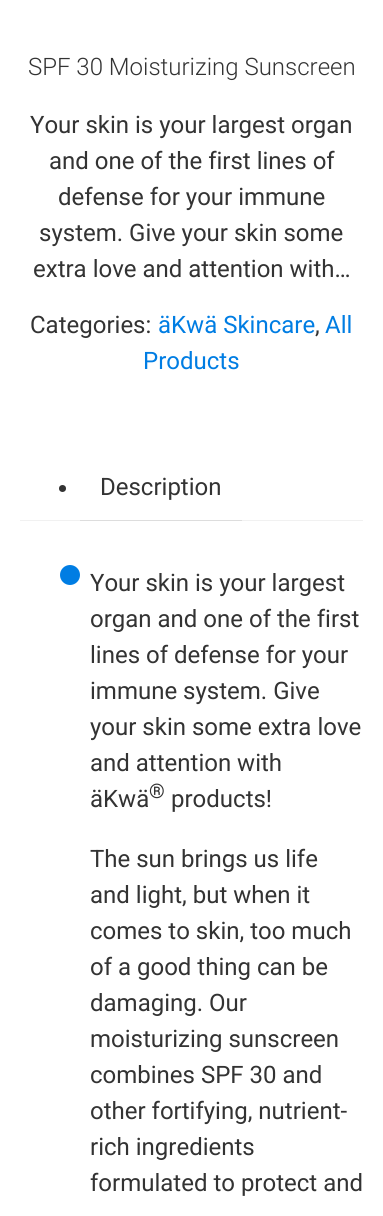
#include <cairo/cairo.h>
#include <math.h>
#include <stddef.h>

static cairo_t *cr;

static void use_color(int r, int g, int b) {
  cairo_set_source_rgb(cr, r / 255.0, g / 255.0, b / 255.0);
}

static void text(double x, double y, const char *s, const char *family, double size, int italic, int bold, int r, int g, int b) {
  cairo_select_font_face(cr, family, italic ? CAIRO_FONT_SLANT_ITALIC : CAIRO_FONT_SLANT_NORMAL,
    bold ? CAIRO_FONT_WEIGHT_BOLD : CAIRO_FONT_WEIGHT_NORMAL);
  cairo_set_font_size(cr, size);
  use_color(r, g, b);
  cairo_move_to(cr, x, y);
  cairo_show_text(cr, s);
}

static void box(double x, double y, double w, double h, int r, int g, int b) {
  use_color(r, g, b);
  cairo_rectangle(cr, x, y, w, h);
  cairo_fill(cr);
}

static void draw(void) {
  use_color(255, 255, 255);
  cairo_paint(cr);
  use_color(51, 51, 51);
  cairo_arc(cr, 62.5, 488.5, 3.5, 0, 2 * M_PI);
  cairo_fill(cr);
  box(20, 520, 343, 1, 241, 241, 241);
  box(80, 520, 162, 1, 221, 221, 221);
  use_color(0, 125, 227);
  cairo_arc(cr, 70, 575, 10, 0, 2 * M_PI);
  cairo_fill(cr);
  text(28, 75, "SPF 30 Moisturizing Sunscreen", "Roboto Light", 24, 0, 0, 51, 51, 51);
  text(30, 133, "Your skin is your largest organ", "Roboto", 24, 0, 0, 51, 51, 51);
  text(49, 169, "and one of the first lines of", "Roboto", 24, 0, 0, 51, 51, 51);
  text(58, 205, "defense for your immune", "Roboto", 24, 0, 0, 51, 51, 51);
  text(39, 241, "system. Give your skin some", "Roboto", 24, 0, 0, 51, 51, 51);
  text(33, 277, "extra love and attention with…", "Roboto", 24, 0, 0, 51, 51, 51);
  text(30, 333, "Categories:", "Roboto", 24, 0, 0, 51, 51, 51);
  text(158, 333, "äKwä Skincare", "Roboto", 24, 0, 0, 0, 125, 227);
  text(315, 333, ",", "Roboto", 24, 0, 0, 51, 51, 51);
  text(325, 333, "All", "Roboto", 24, 0, 0, 0, 125, 227);
  text(143, 369, "Products", "Roboto", 24, 0, 0, 0, 125, 227);
  text(100, 495, "Description", "Roboto", 24, 0, 0, 51, 51, 51);
  text(90, 591, "Your skin is your largest", "Roboto", 24, 0, 0, 51, 51, 51);
  text(90, 627, "organ and one of the first", "Roboto", 24, 0, 0, 51, 51, 51);
  text(90, 663, "lines of defense for your", "Roboto", 24, 0, 0, 51, 51, 51);
  text(90, 699, "immune system. Give", "Roboto", 24, 0, 0, 51, 51, 51);
  text(90, 735, "your skin some extra love", "Roboto", 24, 0, 0, 51, 51, 51);
  text(90, 771, "and attention with", "Roboto", 24, 0, 0, 51, 51, 51);
  text(90, 807, "äKwä", "Roboto", 24, 0, 0, 51, 51, 51);
  text(149, 798, "®", "Roboto", 20, 0, 0, 51, 51, 51);
  text(171, 807, "products!", "Roboto", 24, 0, 0, 51, 51, 51);
  text(90, 867, "The sun brings us life", "Roboto", 24, 0, 0, 51, 51, 51);
  text(90, 903, "and light, but when it", "Roboto", 24, 0, 0, 51, 51, 51);
  text(90, 939, "comes to skin, too much", "Roboto", 24, 0, 0, 51, 51, 51);
  text(90, 975, "of a good thing can be", "Roboto", 24, 0, 0, 51, 51, 51);
  text(90, 1011, "damaging. Our", "Roboto", 24, 0, 0, 51, 51, 51);
  text(90, 1047, "moisturizing sunscreen", "Roboto", 24, 0, 0, 51, 51, 51);
  text(90, 1083, "combines SPF 30 and", "Roboto", 24, 0, 0, 51, 51, 51);
  text(90, 1119, "other fortifying, nutrient-", "Roboto", 24, 0, 0, 51, 51, 51);
  text(90, 1155, "rich ingredients", "Roboto", 24, 0, 0, 51, 51, 51);
  text(90, 1191, "formulated to protect and", "Roboto", 24, 0, 0, 51, 51, 51);
}

int main(void) {
  cairo_surface_t *surface = cairo_image_surface_create(CAIRO_FORMAT_RGB24, 383, 1216);
  cr = cairo_create(surface);
  cairo_font_options_t *options = cairo_font_options_create();
  cairo_font_options_set_hint_metrics(options, CAIRO_HINT_METRICS_OFF);
  cairo_font_options_set_hint_style(options, CAIRO_HINT_STYLE_NONE);
  cairo_set_font_options(cr, options);
  cairo_set_miter_limit(cr, 4);
  draw();
  cairo_surface_write_to_png(surface, "out.png");
  cairo_font_options_destroy(options);
  cairo_destroy(cr);
  cairo_surface_destroy(surface);
  return 0;
}
